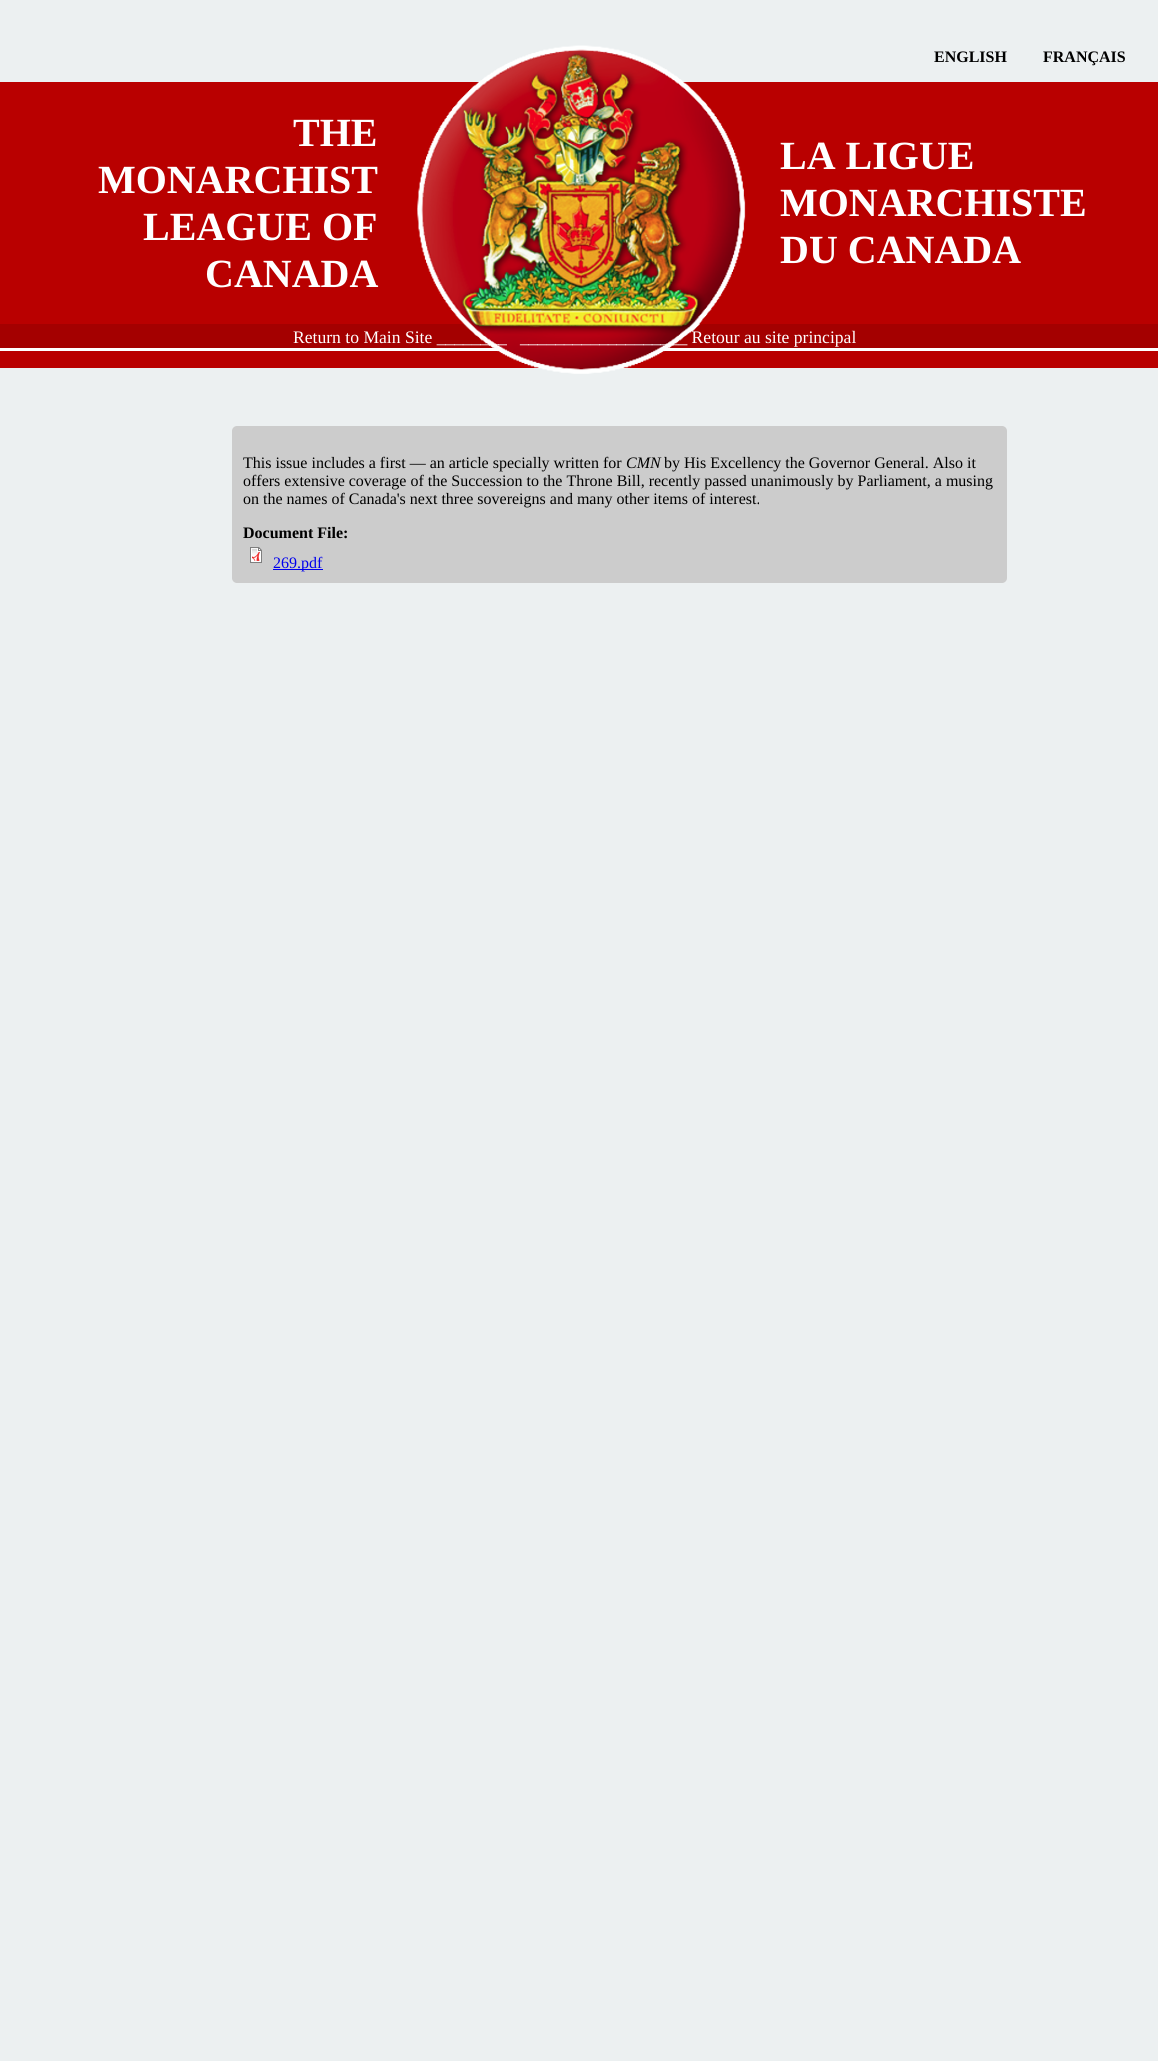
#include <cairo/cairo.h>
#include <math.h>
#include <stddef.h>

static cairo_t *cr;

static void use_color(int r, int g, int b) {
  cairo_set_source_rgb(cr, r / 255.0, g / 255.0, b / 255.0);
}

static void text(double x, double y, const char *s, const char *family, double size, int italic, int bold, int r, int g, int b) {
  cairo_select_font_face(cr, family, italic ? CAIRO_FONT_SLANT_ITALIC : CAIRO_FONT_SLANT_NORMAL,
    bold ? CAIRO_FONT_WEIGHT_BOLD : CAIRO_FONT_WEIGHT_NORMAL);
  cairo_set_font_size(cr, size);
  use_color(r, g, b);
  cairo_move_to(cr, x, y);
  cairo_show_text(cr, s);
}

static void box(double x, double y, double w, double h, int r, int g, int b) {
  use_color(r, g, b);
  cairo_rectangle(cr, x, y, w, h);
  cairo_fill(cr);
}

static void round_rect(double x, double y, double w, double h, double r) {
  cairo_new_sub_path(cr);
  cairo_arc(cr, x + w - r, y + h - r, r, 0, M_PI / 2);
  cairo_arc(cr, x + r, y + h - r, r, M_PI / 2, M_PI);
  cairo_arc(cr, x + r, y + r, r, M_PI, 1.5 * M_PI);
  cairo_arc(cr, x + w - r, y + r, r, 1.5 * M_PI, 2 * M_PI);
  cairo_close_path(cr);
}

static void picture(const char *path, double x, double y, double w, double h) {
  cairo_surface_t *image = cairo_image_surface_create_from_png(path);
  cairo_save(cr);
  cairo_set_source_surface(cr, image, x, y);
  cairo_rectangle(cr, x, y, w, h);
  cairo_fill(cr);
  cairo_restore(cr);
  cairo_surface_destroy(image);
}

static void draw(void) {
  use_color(236, 240, 241);
  cairo_paint(cr);
  box(0, 82, 1158, 242, 185, 0, 0);
  box(0, 324, 1158, 24, 164, 0, 0);
  box(0, 351, 1158, 17, 185, 0, 0);
  box(0, 348, 1158, 3, 255, 255, 255);
  picture("img_01.png", 417, 45, 329, 329);
  use_color(204, 204, 204);
  round_rect(232, 426, 775, 157, 5);
  cairo_fill(cr);
  picture("img_02.png", 250, 547, 12, 16);
  box(273, 569, 50, 1, 0, 0, 238);
  text(934, 62, "ENGLISH", "Liberation Serif", 16, 0, 1, 0, 0, 0);
  text(1043, 62, "FRANÇAIS", "Liberation Serif", 16, 0, 1, 0, 0, 0);
  text(293, 146, "THE", "Liberation Serif", 40, 0, 1, 255, 255, 255);
  text(98, 193, "MONARCHIST", "Liberation Serif", 40, 0, 1, 255, 255, 255);
  text(143, 240, "LEAGUE OF", "Liberation Serif", 40, 0, 1, 255, 255, 255);
  text(205, 287, "CANADA", "Liberation Serif", 40, 0, 1, 255, 255, 255);
  text(780, 169, "LA LIGUE", "Liberation Serif", 40, 0, 1, 255, 255, 255);
  text(780, 216, "MONARCHISTE", "Liberation Serif", 40, 0, 1, 255, 255, 255);
  text(780, 263, "DU CANADA", "Liberation Serif", 40, 0, 1, 255, 255, 255);
  text(293, 343, "Return to Main Site ________", "Liberation Serif", 17.6, 0, 0, 255, 255, 255);
  text(520, 343, "___________________ Retour au site principal", "Liberation Serif", 17.6, 0, 0, 255, 255, 255);
  text(243, 468, "This issue includes a first — an article specially written for", "Liberation Serif", 16, 0, 0, 0, 0, 0);
  text(626, 468, "CMN", "Liberation Serif", 16, 1, 0, 0, 0, 0);
  text(664, 468, "by His Excellency the Governor General. Also it", "Liberation Serif", 16, 0, 0, 0, 0, 0);
  text(243, 486, "offers extensive coverage of the Succession to the Throne Bill, recently passed unanimously by Parliament, a musing", "Liberation Serif", 16, 0, 0, 0, 0, 0);
  text(243, 504, "on the names of Canada's next three sovereigns and many other items of interest.", "Liberation Serif", 16, 0, 0, 0, 0, 0);
  text(243, 538, "Document File:", "Liberation Serif", 16, 0, 1, 0, 0, 0);
  text(273, 568, "269.pdf", "Liberation Serif", 16, 0, 0, 0, 0, 238);
}

int main(void) {
  cairo_surface_t *surface = cairo_image_surface_create(CAIRO_FORMAT_RGB24, 1158, 2061);
  cr = cairo_create(surface);
  cairo_font_options_t *options = cairo_font_options_create();
  cairo_font_options_set_hint_metrics(options, CAIRO_HINT_METRICS_OFF);
  cairo_font_options_set_hint_style(options, CAIRO_HINT_STYLE_NONE);
  cairo_set_font_options(cr, options);
  cairo_set_miter_limit(cr, 4);
  draw();
  cairo_surface_write_to_png(surface, "out.png");
  cairo_font_options_destroy(options);
  cairo_destroy(cr);
  cairo_surface_destroy(surface);
  return 0;
}
